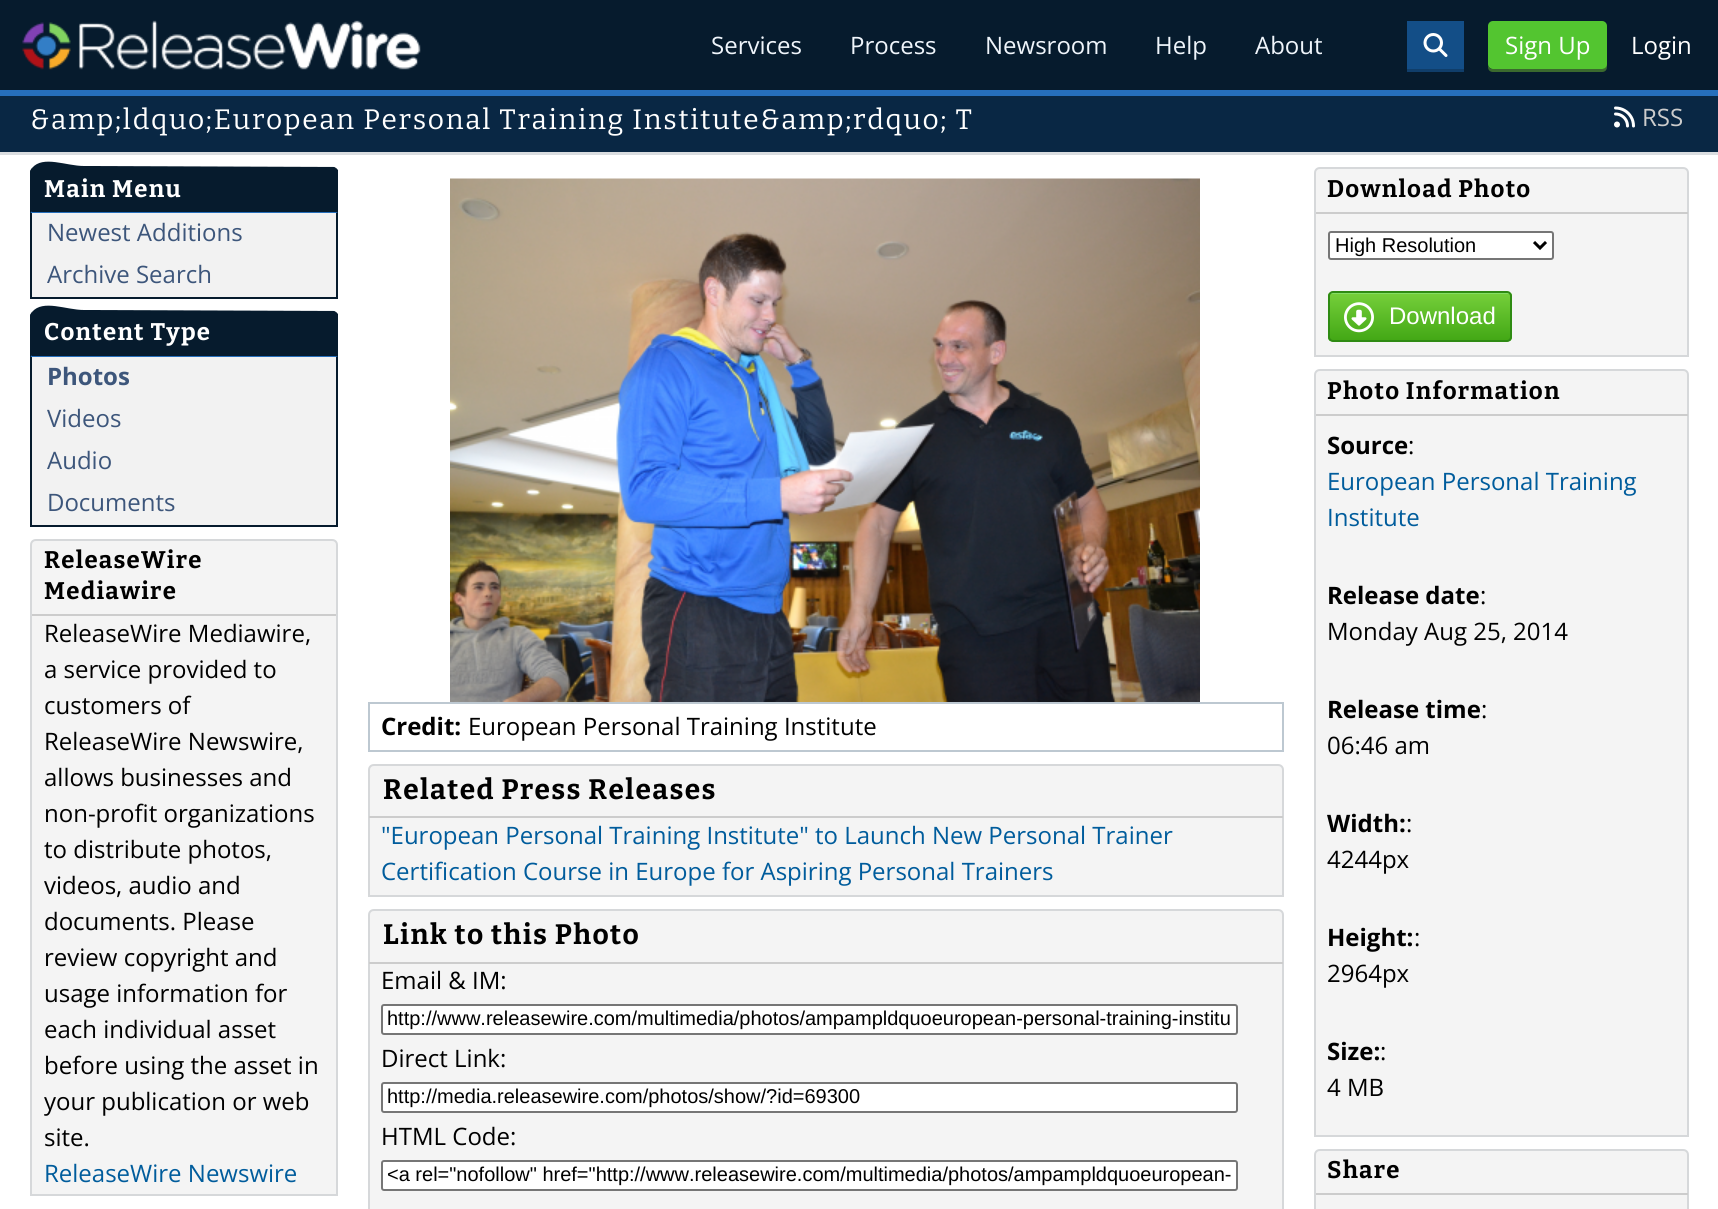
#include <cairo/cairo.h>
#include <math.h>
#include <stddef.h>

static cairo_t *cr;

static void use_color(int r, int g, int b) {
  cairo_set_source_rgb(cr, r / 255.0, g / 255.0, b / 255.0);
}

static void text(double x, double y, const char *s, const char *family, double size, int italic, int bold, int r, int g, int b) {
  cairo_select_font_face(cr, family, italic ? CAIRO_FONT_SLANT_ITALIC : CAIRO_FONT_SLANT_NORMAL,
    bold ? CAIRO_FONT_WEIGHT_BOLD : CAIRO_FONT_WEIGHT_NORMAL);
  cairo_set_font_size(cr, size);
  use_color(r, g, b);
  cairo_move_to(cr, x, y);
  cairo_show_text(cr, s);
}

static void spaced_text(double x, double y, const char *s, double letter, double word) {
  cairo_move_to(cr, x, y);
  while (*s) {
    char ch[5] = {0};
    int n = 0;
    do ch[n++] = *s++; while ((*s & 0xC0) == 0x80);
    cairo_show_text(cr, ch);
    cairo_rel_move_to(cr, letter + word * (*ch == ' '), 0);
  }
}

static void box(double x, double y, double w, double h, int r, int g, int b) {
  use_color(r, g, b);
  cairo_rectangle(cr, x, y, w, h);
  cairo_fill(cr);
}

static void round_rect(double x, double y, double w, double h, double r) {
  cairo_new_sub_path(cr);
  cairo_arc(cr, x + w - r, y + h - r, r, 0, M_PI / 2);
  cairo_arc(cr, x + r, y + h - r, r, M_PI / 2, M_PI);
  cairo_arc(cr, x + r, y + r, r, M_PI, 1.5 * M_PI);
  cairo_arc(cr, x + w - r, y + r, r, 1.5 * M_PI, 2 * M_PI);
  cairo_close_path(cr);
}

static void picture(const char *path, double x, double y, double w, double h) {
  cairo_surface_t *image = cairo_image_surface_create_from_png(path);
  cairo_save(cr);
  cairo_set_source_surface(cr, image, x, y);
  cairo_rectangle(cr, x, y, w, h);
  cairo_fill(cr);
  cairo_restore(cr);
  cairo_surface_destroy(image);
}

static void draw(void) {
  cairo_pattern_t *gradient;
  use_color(255, 255, 255);
  cairo_paint(cr);
  box(0, 0, 1718, 90, 6, 27, 45);
  box(0, 90, 1718, 6, 38, 111, 188);
  picture("img_01.png", 22, 20, 399, 50);
  box(1407, 69, 57, 3, 16, 62, 106);
  box(1407, 21, 57, 48, 19, 78, 135);
  picture("img_02.png", 1423, 33, 25, 24);
  use_color(59, 106, 46);
  cairo_new_path(cr);
  cairo_move_to(cr, 1488, 64);
  cairo_line_to(cr, 1488, 67);
  cairo_curve_to(cr, 1488, 70, 1490, 72, 1493, 72);
  cairo_line_to(cr, 1602, 72);
  cairo_curve_to(cr, 1605, 72, 1607, 70, 1607, 67);
  cairo_line_to(cr, 1607, 29);
  cairo_line_to(cr, 1606, 27);
  cairo_line_to(cr, 1606, 64);
  cairo_curve_to(cr, 1606, 67, 1604, 69, 1602, 69);
  cairo_line_to(cr, 1492, 69);
  cairo_curve_to(cr, 1490, 69, 1488, 67, 1488, 64);
  cairo_close_path(cr);
  cairo_fill(cr);
  use_color(83, 197, 48);
  round_rect(1488, 21, 119, 48, 5);
  cairo_fill(cr);
  box(0, 96, 1718, 56, 9, 39, 68);
  box(0, 152, 1718, 3, 218, 221, 224);
  picture("img_03.png", 1614, 106, 21, 22);
  use_color(6, 27, 45);
  cairo_new_path(cr);
  cairo_move_to(cr, 36, 167);
  cairo_line_to(cr, 332, 167);
  cairo_curve_to(cr, 335.5, 167, 338, 169.5, 338, 173);
  cairo_line_to(cr, 338, 213);
  cairo_line_to(cr, 30, 213);
  cairo_line_to(cr, 30, 173);
  cairo_curve_to(cr, 30, 169.5, 32.5, 167, 36, 167);
  cairo_close_path(cr);
  cairo_fill(cr);
  cairo_new_path(cr);
  cairo_move_to(cr, 36, 168);
  cairo_curve_to(cr, 35, 168, 34, 169, 33, 170);
  cairo_line_to(cr, 32, 168);
  cairo_curve_to(cr, 43, 155, 66, 166, 84, 166);
  cairo_line_to(cr, 334, 167);
  cairo_line_to(cr, 336, 168);
  cairo_line_to(cr, 335, 169);
  cairo_line_to(cr, 332, 168);
  cairo_close_path(cr);
  cairo_fill(cr);
  cairo_new_path(cr);
  cairo_move_to(cr, 338, 170);
  cairo_line_to(cr, 338, 213);
  cairo_line_to(cr, 336, 212);
  cairo_line_to(cr, 336, 172);
  cairo_curve_to(cr, 336, 171, 336, 170, 335, 169);
  cairo_line_to(cr, 336, 168);
  cairo_close_path(cr);
  cairo_fill(cr);
  use_color(38, 111, 188);
  cairo_new_path(cr);
  cairo_move_to(cr, 338, 213);
  cairo_line_to(cr, 336, 212);
  cairo_line_to(cr, 32, 212);
  cairo_line_to(cr, 32, 211);
  cairo_line_to(cr, 30, 213);
  cairo_close_path(cr);
  cairo_fill(cr);
  use_color(6, 27, 45);
  cairo_new_path(cr);
  cairo_move_to(cr, 30, 213);
  cairo_line_to(cr, 32, 211);
  cairo_line_to(cr, 32, 172);
  cairo_line_to(cr, 33, 170);
  cairo_line_to(cr, 32, 168);
  cairo_curve_to(cr, 31, 169, 30, 171, 30, 172);
  cairo_close_path(cr);
  cairo_fill(cr);
  box(32, 213, 304, 84, 242, 242, 242);
  box(336, 213, 2, 86, 6, 27, 45);
  box(30, 297, 308, 2, 6, 27, 45);
  box(30, 213, 2, 86, 6, 27, 45);
  cairo_new_path(cr);
  cairo_move_to(cr, 36, 311);
  cairo_line_to(cr, 332, 311);
  cairo_curve_to(cr, 335.5, 311, 338, 313.5, 338, 317);
  cairo_line_to(cr, 338, 357);
  cairo_line_to(cr, 30, 357);
  cairo_line_to(cr, 30, 317);
  cairo_curve_to(cr, 30, 313.5, 32.5, 311, 36, 311);
  cairo_close_path(cr);
  cairo_fill(cr);
  cairo_new_path(cr);
  cairo_move_to(cr, 36, 312);
  cairo_curve_to(cr, 35, 312, 34, 313, 33, 314);
  cairo_line_to(cr, 32, 312);
  cairo_curve_to(cr, 43, 299, 66, 310, 84, 310);
  cairo_line_to(cr, 334, 311);
  cairo_line_to(cr, 336, 312);
  cairo_line_to(cr, 335, 313);
  cairo_line_to(cr, 332, 312);
  cairo_close_path(cr);
  cairo_fill(cr);
  cairo_new_path(cr);
  cairo_move_to(cr, 338, 314);
  cairo_line_to(cr, 338, 357);
  cairo_line_to(cr, 336, 356);
  cairo_line_to(cr, 336, 316);
  cairo_curve_to(cr, 336, 315, 336, 314, 335, 313);
  cairo_line_to(cr, 336, 312);
  cairo_close_path(cr);
  cairo_fill(cr);
  use_color(38, 111, 188);
  cairo_new_path(cr);
  cairo_move_to(cr, 338, 357);
  cairo_line_to(cr, 336, 356);
  cairo_line_to(cr, 32, 356);
  cairo_line_to(cr, 32, 355);
  cairo_line_to(cr, 30, 357);
  cairo_close_path(cr);
  cairo_fill(cr);
  use_color(6, 27, 45);
  cairo_new_path(cr);
  cairo_move_to(cr, 30, 357);
  cairo_line_to(cr, 32, 355);
  cairo_line_to(cr, 32, 316);
  cairo_line_to(cr, 33, 314);
  cairo_line_to(cr, 32, 312);
  cairo_curve_to(cr, 31, 313, 30, 315, 30, 316);
  cairo_close_path(cr);
  cairo_fill(cr);
  box(32, 357, 304, 168, 242, 242, 242);
  box(336, 357, 2, 170, 6, 27, 45);
  box(30, 525, 308, 2, 6, 27, 45);
  box(30, 357, 2, 170, 6, 27, 45);
  use_color(244, 244, 244);
  cairo_new_path(cr);
  cairo_move_to(cr, 36, 540);
  cairo_line_to(cr, 332, 540);
  cairo_curve_to(cr, 335, 540, 337, 542, 337, 545);
  cairo_line_to(cr, 337, 1195);
  cairo_line_to(cr, 31, 1195);
  cairo_line_to(cr, 31, 545);
  cairo_curve_to(cr, 31, 542, 33, 540, 36, 540);
  cairo_close_path(cr);
  cairo_fill_preserve(cr);
  use_color(214, 216, 218);
  cairo_stroke(cr);
  box(32, 614, 304, 2, 204, 204, 204);
  picture("img_04.png", 450, 178, 750, 524);
  cairo_rectangle(cr, 369, 703, 914, 48);
  use_color(189, 200, 209);
  cairo_stroke(cr);
  use_color(244, 244, 244);
  cairo_new_path(cr);
  cairo_move_to(cr, 374, 765);
  cairo_line_to(cr, 1278, 765);
  cairo_curve_to(cr, 1281, 765, 1283, 767, 1283, 770);
  cairo_line_to(cr, 1283, 896);
  cairo_line_to(cr, 369, 896);
  cairo_line_to(cr, 369, 770);
  cairo_curve_to(cr, 369, 767, 371, 765, 374, 765);
  cairo_close_path(cr);
  cairo_fill_preserve(cr);
  use_color(214, 216, 218);
  cairo_stroke(cr);
  box(369, 816, 914, 2, 204, 204, 204);
  use_color(244, 244, 244);
  cairo_new_path(cr);
  cairo_move_to(cr, 374, 910);
  cairo_line_to(cr, 1278, 910);
  cairo_curve_to(cr, 1281, 910, 1283, 912, 1283, 915);
  cairo_line_to(cr, 1283, 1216);
  cairo_line_to(cr, 369, 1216);
  cairo_line_to(cr, 369, 915);
  cairo_curve_to(cr, 369, 912, 371, 910, 374, 910);
  cairo_close_path(cr);
  cairo_fill_preserve(cr);
  use_color(214, 216, 218);
  cairo_stroke(cr);
  box(369, 962, 914, 2, 204, 204, 204);
  use_color(255, 255, 255);
  round_rect(382, 1005, 855, 29, 2);
  cairo_fill_preserve(cr);
  use_color(118, 118, 118);
  cairo_stroke(cr);
  use_color(255, 255, 255);
  round_rect(382, 1083, 855, 29, 2);
  cairo_fill_preserve(cr);
  use_color(118, 118, 118);
  cairo_stroke(cr);
  use_color(255, 255, 255);
  round_rect(382, 1161, 855, 29, 2);
  cairo_fill_preserve(cr);
  use_color(118, 118, 118);
  cairo_stroke(cr);
  use_color(244, 244, 244);
  cairo_new_path(cr);
  cairo_move_to(cr, 1320, 168);
  cairo_line_to(cr, 1683, 168);
  cairo_curve_to(cr, 1686, 168, 1688, 170, 1688, 173);
  cairo_line_to(cr, 1688, 356);
  cairo_line_to(cr, 1315, 356);
  cairo_line_to(cr, 1315, 173);
  cairo_curve_to(cr, 1315, 170, 1317, 168, 1320, 168);
  cairo_close_path(cr);
  cairo_fill_preserve(cr);
  use_color(214, 216, 218);
  cairo_stroke(cr);
  box(1316, 212, 372, 2, 204, 204, 204);
  use_color(255, 255, 255);
  round_rect(1329, 232, 224, 27, 2);
  cairo_fill_preserve(cr);
  use_color(118, 118, 118);
  cairo_stroke(cr);
  cairo_new_path(cr);
  cairo_move_to(cr, 1534, 242);
  cairo_line_to(cr, 1540, 248);
  cairo_line_to(cr, 1546, 242);
  use_color(0, 0, 0);
  cairo_set_line_width(cr, 3);
  cairo_stroke(cr);
  cairo_save(cr);
  round_rect(1328, 291, 184, 51, 5);
  cairo_clip(cr);
  gradient = cairo_pattern_create_linear(1420, 293, 1420, 341);
  cairo_pattern_add_color_stop_rgba(gradient, 0, 0.553, 0.898, 0.475, 1);
  cairo_pattern_add_color_stop_rgba(gradient, 0.03, 0.455, 0.808, 0.224, 1);
  cairo_pattern_add_color_stop_rgba(gradient, 1, 0.259, 0.655, 0.082, 1);
  cairo_set_source(cr, gradient);
  cairo_pattern_destroy(gradient);
  cairo_rectangle(cr, 1328, 293, 184, 48);
  cairo_fill(cr);
  cairo_restore(cr);
  round_rect(1329, 292, 182, 49, 4);
  use_color(47, 139, 19);
  cairo_set_line_width(cr, 2);
  cairo_stroke(cr);
  picture("img_05.png", 1344, 302, 30, 31);
  use_color(244, 244, 244);
  cairo_new_path(cr);
  cairo_move_to(cr, 1320, 370);
  cairo_line_to(cr, 1683, 370);
  cairo_curve_to(cr, 1686, 370, 1688, 372, 1688, 375);
  cairo_line_to(cr, 1688, 1136);
  cairo_line_to(cr, 1315, 1136);
  cairo_line_to(cr, 1315, 375);
  cairo_curve_to(cr, 1315, 372, 1317, 370, 1320, 370);
  cairo_close_path(cr);
  cairo_fill_preserve(cr);
  use_color(214, 216, 218);
  cairo_stroke(cr);
  box(1316, 414, 372, 2, 204, 204, 204);
  use_color(244, 244, 244);
  cairo_new_path(cr);
  cairo_move_to(cr, 1320, 1150);
  cairo_line_to(cr, 1683, 1150);
  cairo_curve_to(cr, 1686, 1150, 1688, 1152, 1688, 1155);
  cairo_line_to(cr, 1688, 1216);
  cairo_line_to(cr, 1315, 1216);
  cairo_line_to(cr, 1315, 1155);
  cairo_curve_to(cr, 1315, 1152, 1317, 1150, 1320, 1150);
  cairo_close_path(cr);
  cairo_fill_preserve(cr);
  use_color(214, 216, 218);
  cairo_stroke(cr);
  box(1316, 1193, 372, 2, 204, 204, 204);
  text(711, 54, "Services", "Open Sans", 24, 0, 0, 239, 245, 251);
  text(850, 54, "Process", "Open Sans", 24, 0, 0, 239, 245, 251);
  text(985, 54, "Newsroom", "Open Sans", 24, 0, 0, 239, 245, 251);
  text(1155, 54, "Help", "Open Sans", 24, 0, 0, 239, 245, 251);
  text(1255, 54, "About", "Open Sans", 24, 0, 0, 239, 245, 251);
  text(1505, 54, "Sign Up", "Open Sans", 24, 0, 0, 255, 255, 255);
  text(1631, 54, "Login", "Open Sans", 24, 0, 0, 255, 255, 255);
  cairo_select_font_face(cr, "Bitter", CAIRO_FONT_SLANT_NORMAL, CAIRO_FONT_WEIGHT_NORMAL);
  cairo_set_font_size(cr, 28.1);
  spaced_text(30, 129, "&amp;ldquo;European Personal Training Institute&amp;rdquo; T", 1.68, 0);
  text(1642, 126, "RSS", "Open Sans", 24, 0, 0, 204, 204, 204);
  cairo_select_font_face(cr, "Bitter", CAIRO_FONT_SLANT_NORMAL, CAIRO_FONT_WEIGHT_BOLD);
  use_color(255, 255, 255);
  spaced_text(44, 197, "Main Menu", 1.25, 0);
  text(47, 241, "Newest Additions", "Open Sans", 24, 0, 0, 61, 86, 123);
  text(47, 283, "Archive Search", "Open Sans", 24, 0, 0, 61, 86, 123);
  cairo_select_font_face(cr, "Bitter", CAIRO_FONT_SLANT_NORMAL, CAIRO_FONT_WEIGHT_BOLD);
  use_color(255, 255, 255);
  spaced_text(44, 340, "Content Type", 1.25, 0);
  text(47, 385, "Photos", "Open Sans", 24, 0, 1, 61, 86, 123);
  text(47, 427, "Videos", "Open Sans", 24, 0, 0, 61, 86, 123);
  text(47, 469, "Audio", "Open Sans", 24, 0, 0, 61, 86, 123);
  text(47, 511, "Documents", "Open Sans", 24, 0, 0, 61, 86, 123);
  cairo_select_font_face(cr, "Bitter", CAIRO_FONT_SLANT_NORMAL, CAIRO_FONT_WEIGHT_BOLD);
  use_color(0, 0, 0);
  spaced_text(44, 568, "ReleaseWire", 1.25, 0);
  spaced_text(44, 599, "Mediawire", 1.25, 0);
  text(44, 642, "ReleaseWire Mediawire,", "Open Sans", 24, 0, 0, 0, 0, 0);
  text(44, 678, "a service provided to", "Open Sans", 24, 0, 0, 0, 0, 0);
  text(44, 714, "customers of", "Open Sans", 24, 0, 0, 0, 0, 0);
  text(44, 750, "ReleaseWire Newswire,", "Open Sans", 24, 0, 0, 0, 0, 0);
  text(44, 786, "allows businesses and", "Open Sans", 24, 0, 0, 0, 0, 0);
  text(44, 822, "non-profit organizations", "Open Sans", 24, 0, 0, 0, 0, 0);
  text(44, 858, "to distribute photos,", "Open Sans", 24, 0, 0, 0, 0, 0);
  text(44, 894, "videos, audio and", "Open Sans", 24, 0, 0, 0, 0, 0);
  text(44, 930, "documents. Please", "Open Sans", 24, 0, 0, 0, 0, 0);
  text(44, 966, "review copyright and", "Open Sans", 24, 0, 0, 0, 0, 0);
  text(44, 1002, "usage information for", "Open Sans", 24, 0, 0, 0, 0, 0);
  text(44, 1038, "each individual asset", "Open Sans", 24, 0, 0, 0, 0, 0);
  text(44, 1074, "before using the asset in", "Open Sans", 24, 0, 0, 0, 0, 0);
  text(44, 1110, "your publication or web", "Open Sans", 24, 0, 0, 0, 0, 0);
  text(44, 1146, "site.", "Open Sans", 24, 0, 0, 0, 0, 0);
  text(44, 1182, "ReleaseWire Newswire", "Open Sans", 24, 0, 0, 0, 92, 156);
  text(381, 735, "Credit:", "Open Sans", 24, 0, 1, 0, 0, 0);
  text(468, 735, "European Personal Training Institute", "Open Sans", 24, 0, 0, 0, 0, 0);
  cairo_select_font_face(cr, "Bitter", CAIRO_FONT_SLANT_NORMAL, CAIRO_FONT_WEIGHT_BOLD);
  cairo_set_font_size(cr, 28.1);
  spaced_text(383, 799, "Related Press Releases", 1.4, 0);
  text(381, 844, "\"European Personal Training Institute\" to Launch New Personal Trainer", "Open Sans", 24, 0, 0, 0, 92, 156);
  text(381, 880, "Certification Course in Europe for Aspiring Personal Trainers", "Open Sans", 24, 0, 0, 0, 92, 156);
  cairo_select_font_face(cr, "Bitter", CAIRO_FONT_SLANT_NORMAL, CAIRO_FONT_WEIGHT_BOLD);
  cairo_set_font_size(cr, 28.1);
  use_color(0, 0, 0);
  spaced_text(383, 944, "Link to this Photo", 1.4, 0);
  text(381, 989, "Email & IM:", "Open Sans", 24, 0, 0, 0, 0, 0);
  text(387, 1025, "http://www.releasewire.com/multimedia/photos/ampampldquoeuropean-personal-training-institu", "Liberation Sans", 20, 0, 0, 0, 0, 0);
  text(381, 1067, "Direct Link:", "Open Sans", 24, 0, 0, 0, 0, 0);
  text(387, 1103, "http://media.releasewire.com/photos/show/?id=69300", "Liberation Sans", 20, 0, 0, 0, 0, 0);
  text(381, 1145, "HTML Code:", "Open Sans", 24, 0, 0, 0, 0, 0);
  text(387, 1181, "<a rel=\"nofollow\" href=\"http://www.releasewire.com/multimedia/photos/ampampldquoeuropean-", "Liberation Sans", 20, 0, 0, 0, 0, 0);
  cairo_select_font_face(cr, "Bitter", CAIRO_FONT_SLANT_NORMAL, CAIRO_FONT_WEIGHT_BOLD);
  cairo_set_font_size(cr, 24);
  spaced_text(1327, 197, "Download Photo", 1.25, 0);
  text(1335, 252, "High Resolution", "Liberation Sans", 20, 0, 0, 0, 0, 0);
  text(1389, 324, "Download", "Liberation Sans", 24, 0, 0, 255, 255, 255);
  cairo_select_font_face(cr, "Bitter", CAIRO_FONT_SLANT_NORMAL, CAIRO_FONT_WEIGHT_BOLD);
  use_color(0, 0, 0);
  spaced_text(1327, 399, "Photo Information", 1.25, 0);
  text(1327, 454, "Source", "Open Sans", 24, 0, 1, 0, 0, 0);
  text(1408, 454, ":", "Open Sans", 24, 0, 0, 0, 0, 0);
  text(1327, 490, "European Personal Training", "Open Sans", 24, 0, 0, 0, 92, 156);
  text(1327, 526, "Institute", "Open Sans", 24, 0, 0, 0, 92, 156);
  text(1327, 604, "Release date", "Open Sans", 24, 0, 1, 0, 0, 0);
  text(1480, 604, ":", "Open Sans", 24, 0, 0, 0, 0, 0);
  text(1327, 640, "Monday Aug 25, 2014", "Open Sans", 24, 0, 0, 0, 0, 0);
  text(1327, 718, "Release time", "Open Sans", 24, 0, 1, 0, 0, 0);
  text(1481, 718, ":", "Open Sans", 24, 0, 0, 0, 0, 0);
  text(1327, 754, "06:46 am", "Open Sans", 24, 0, 0, 0, 0, 0);
  text(1327, 832, "Width:", "Open Sans", 24, 0, 1, 0, 0, 0);
  text(1406, 832, ":", "Open Sans", 24, 0, 0, 0, 0, 0);
  text(1327, 868, "4244px", "Open Sans", 24, 0, 0, 0, 0, 0);
  text(1327, 946, "Height:", "Open Sans", 24, 0, 1, 0, 0, 0);
  text(1414, 946, ":", "Open Sans", 24, 0, 0, 0, 0, 0);
  text(1327, 982, "2964px", "Open Sans", 24, 0, 0, 0, 0, 0);
  text(1327, 1060, "Size:", "Open Sans", 24, 0, 1, 0, 0, 0);
  text(1380, 1060, ":", "Open Sans", 24, 0, 0, 0, 0, 0);
  text(1327, 1096, "4 MB", "Open Sans", 24, 0, 0, 0, 0, 0);
  cairo_select_font_face(cr, "Bitter", CAIRO_FONT_SLANT_NORMAL, CAIRO_FONT_WEIGHT_BOLD);
  spaced_text(1327, 1178, "Share", 1.25, 0);
}

int main(void) {
  cairo_surface_t *surface = cairo_image_surface_create(CAIRO_FORMAT_RGB24, 1718, 1209);
  cr = cairo_create(surface);
  cairo_font_options_t *options = cairo_font_options_create();
  cairo_font_options_set_hint_metrics(options, CAIRO_HINT_METRICS_OFF);
  cairo_font_options_set_hint_style(options, CAIRO_HINT_STYLE_NONE);
  cairo_set_font_options(cr, options);
  cairo_set_miter_limit(cr, 4);
  draw();
  cairo_surface_write_to_png(surface, "out.png");
  cairo_font_options_destroy(options);
  cairo_destroy(cr);
  cairo_surface_destroy(surface);
  return 0;
}
